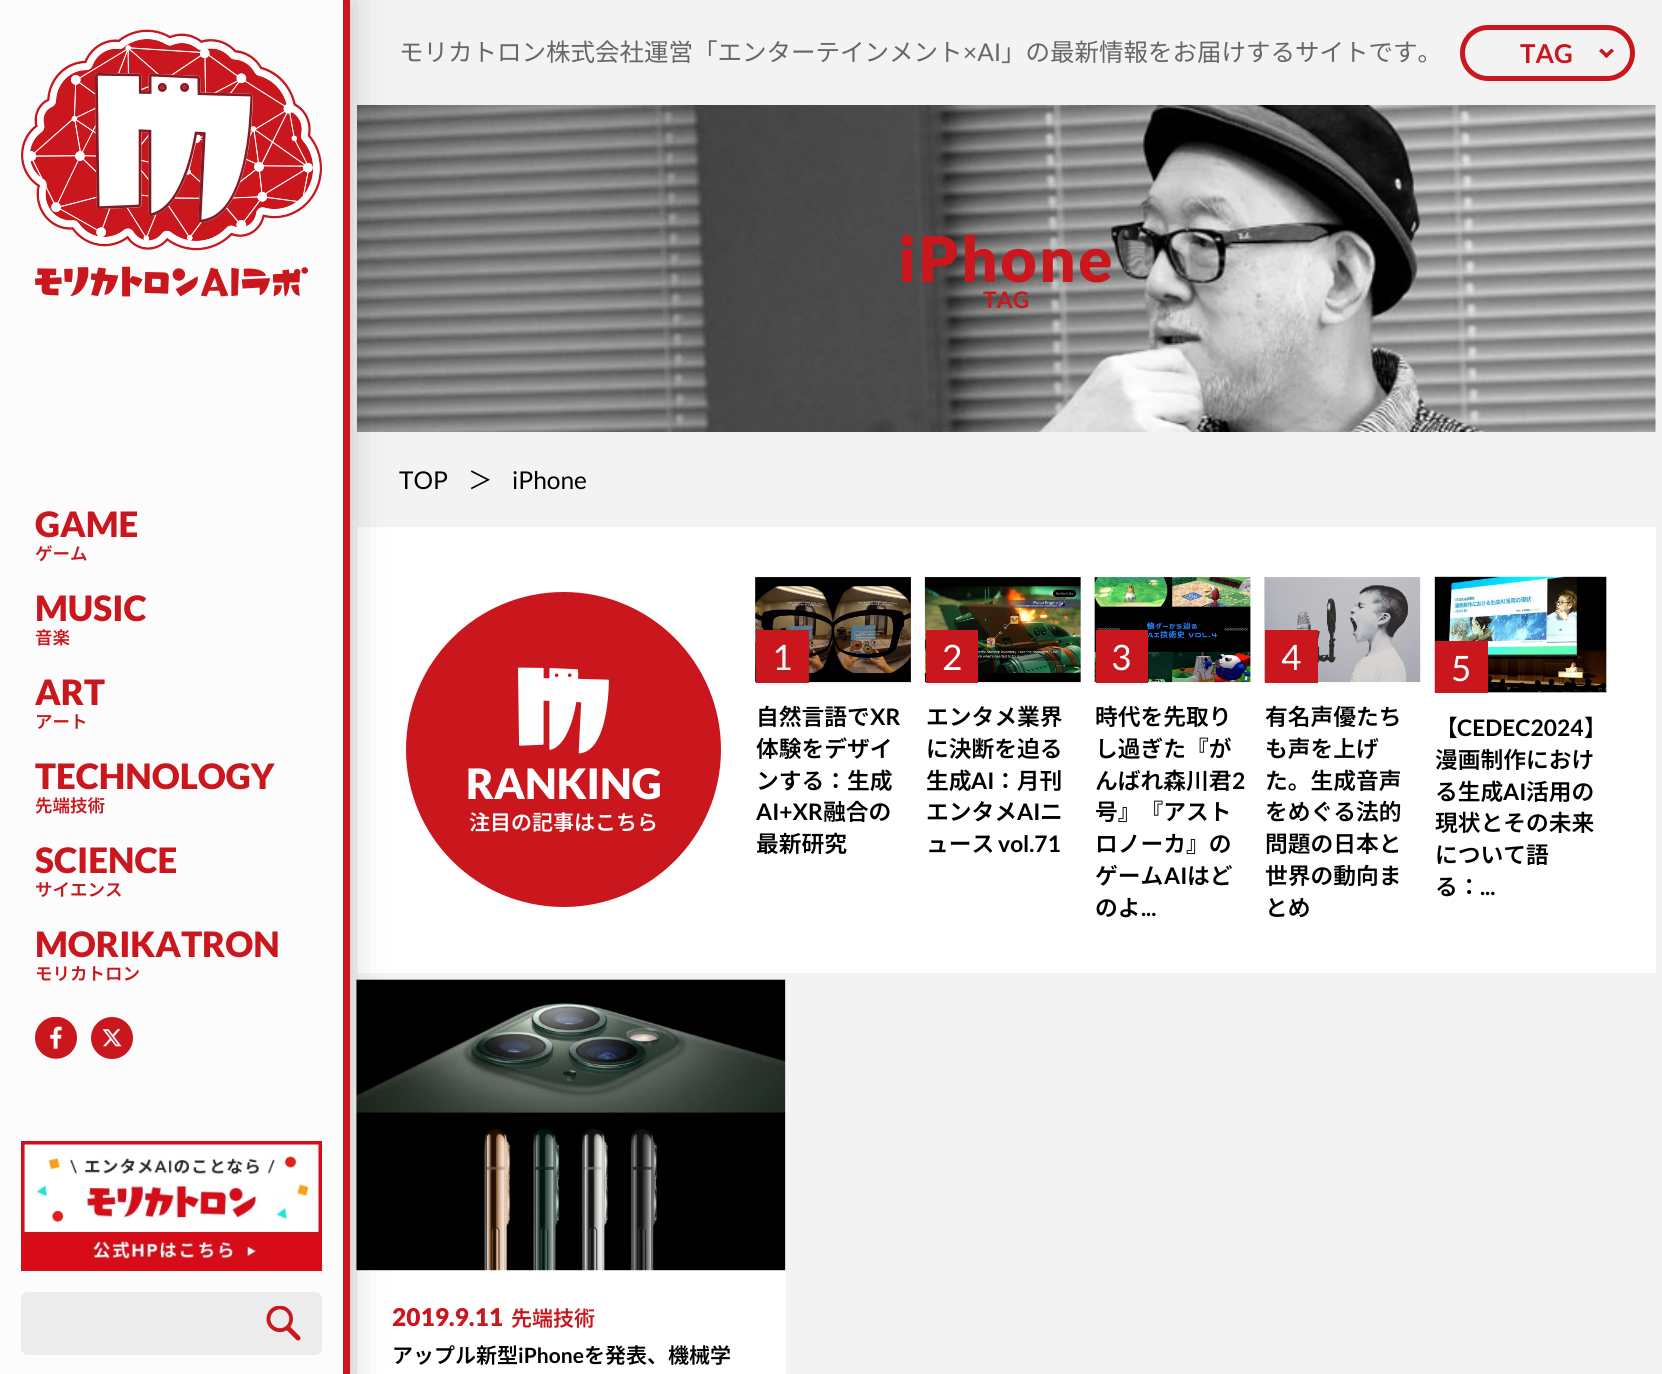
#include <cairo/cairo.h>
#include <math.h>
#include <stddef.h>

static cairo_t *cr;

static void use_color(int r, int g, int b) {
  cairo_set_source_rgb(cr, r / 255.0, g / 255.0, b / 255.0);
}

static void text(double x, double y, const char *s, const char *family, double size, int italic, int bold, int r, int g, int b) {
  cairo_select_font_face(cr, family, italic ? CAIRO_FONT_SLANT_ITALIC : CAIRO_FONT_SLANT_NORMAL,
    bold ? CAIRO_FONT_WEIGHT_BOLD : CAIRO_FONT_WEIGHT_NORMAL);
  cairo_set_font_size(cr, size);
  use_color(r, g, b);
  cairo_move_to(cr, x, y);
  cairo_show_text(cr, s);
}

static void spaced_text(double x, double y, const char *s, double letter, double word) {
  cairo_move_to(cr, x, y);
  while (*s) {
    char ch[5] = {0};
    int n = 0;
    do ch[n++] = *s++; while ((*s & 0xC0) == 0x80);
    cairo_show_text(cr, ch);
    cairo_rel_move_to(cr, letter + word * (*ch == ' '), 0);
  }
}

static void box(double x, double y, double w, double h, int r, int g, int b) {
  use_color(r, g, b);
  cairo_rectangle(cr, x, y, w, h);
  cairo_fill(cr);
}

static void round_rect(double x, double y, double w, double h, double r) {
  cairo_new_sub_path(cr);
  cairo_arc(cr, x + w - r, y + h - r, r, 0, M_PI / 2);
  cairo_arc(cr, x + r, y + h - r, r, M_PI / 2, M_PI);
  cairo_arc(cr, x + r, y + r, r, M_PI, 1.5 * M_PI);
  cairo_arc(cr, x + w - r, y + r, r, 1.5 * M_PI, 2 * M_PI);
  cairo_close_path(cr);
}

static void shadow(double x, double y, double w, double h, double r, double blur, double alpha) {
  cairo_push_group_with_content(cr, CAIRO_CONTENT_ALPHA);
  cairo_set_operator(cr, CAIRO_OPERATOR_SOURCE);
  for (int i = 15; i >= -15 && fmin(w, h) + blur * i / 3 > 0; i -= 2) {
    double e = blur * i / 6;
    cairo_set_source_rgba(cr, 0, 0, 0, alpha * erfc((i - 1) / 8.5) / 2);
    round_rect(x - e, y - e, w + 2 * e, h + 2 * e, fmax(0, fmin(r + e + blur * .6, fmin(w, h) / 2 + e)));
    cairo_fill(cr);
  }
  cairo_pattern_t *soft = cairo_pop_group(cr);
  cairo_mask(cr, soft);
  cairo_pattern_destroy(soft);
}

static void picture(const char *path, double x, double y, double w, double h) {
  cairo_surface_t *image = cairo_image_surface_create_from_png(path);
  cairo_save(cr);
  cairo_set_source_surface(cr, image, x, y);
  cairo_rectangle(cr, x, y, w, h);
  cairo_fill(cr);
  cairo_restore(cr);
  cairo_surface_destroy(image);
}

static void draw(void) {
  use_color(243, 243, 243);
  cairo_paint(cr);
  picture("img_07.png", 357, 105, 1299, 327);
  box(357, 527, 1299, 446, 255, 255, 255);
  box(357, 980, 429, 394, 255, 255, 255);
  picture("img_14.png", 356, 979, 430, 292);
  use_color(0, 0, 0);
  shadow(0, 0, 350, 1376, 0, 17.5, 0.2);
  box(0, 0, 343, 1374, 252, 252, 252);
  box(343, 0, 7, 1374, 201, 23, 29);
  picture("img_01.png", 21, 29, 301, 222);
  picture("img_02.png", 35, 266, 273, 31);
  picture("img_03.png", 35, 1017, 42, 42);
  picture("img_04.png", 91, 1017, 42, 42);
  picture("img_05.png", 21, 1141, 301, 130);
  use_color(236, 236, 236);
  round_rect(21, 1292, 301, 63, 7);
  cairo_fill(cr);
  picture("img_06.png", 266, 1306, 35, 35);
  round_rect(1462.5, 27.5, 170, 51, 25.5);
  use_color(201, 23, 29);
  cairo_set_line_width(cr, 5);
  cairo_stroke(cr);
  cairo_new_path(cr);
  cairo_move_to(cr, 1611.5, 48.5);
  cairo_line_to(cr, 1614, 51);
  cairo_line_to(cr, 1606.5, 58);
  cairo_line_to(cr, 1604, 55.5);
  cairo_close_path(cr);
  cairo_fill(cr);
  cairo_new_path(cr);
  cairo_move_to(cr, 1601.5, 48.5);
  cairo_line_to(cr, 1609, 55.5);
  cairo_line_to(cr, 1606.5, 58);
  cairo_line_to(cr, 1599, 51);
  cairo_close_path(cr);
  cairo_fill(cr);
  cairo_arc(cr, 563.5, 749.5, 157.5, 0, 2 * M_PI);
  cairo_fill(cr);
  picture("img_08.png", 518, 667, 91, 87);
  picture("img_09.png", 755, 577, 156, 106);
  box(756, 630, 53, 53, 201, 23, 29);
  picture("img_10.png", 924, 577, 157, 106);
  box(926, 630, 52, 53, 201, 23, 29);
  picture("img_11.png", 1094, 577, 157, 106);
  box(1096, 630, 52, 53, 201, 23, 29);
  picture("img_12.png", 1264, 577, 157, 106);
  box(1265, 630, 53, 53, 201, 23, 29);
  picture("img_13.png", 1434, 576, 173, 117);
  box(1435, 641, 53, 52, 201, 23, 29);
  text(35, 537, "GAME", "Lato Black", 35, 0, 0, 201, 23, 29);
  text(35, 560, "ゲーム", "Noto Sans JP SemiBold", 17.5, 0, 0, 201, 23, 29);
  text(35, 621, "MUSIC", "Lato Black", 35, 0, 0, 201, 23, 29);
  text(35, 644, "音楽", "Noto Sans JP SemiBold", 17.5, 0, 0, 201, 23, 29);
  text(35, 705, "ART", "Lato Black", 35, 0, 0, 201, 23, 29);
  text(35, 728, "アート", "Noto Sans JP SemiBold", 17.5, 0, 0, 201, 23, 29);
  text(35, 789, "TECHNOLOGY", "Lato Black", 35, 0, 0, 201, 23, 29);
  text(35, 812, "先端技術", "Noto Sans JP SemiBold", 17.5, 0, 0, 201, 23, 29);
  text(35, 873, "SCIENCE", "Lato Black", 35, 0, 0, 201, 23, 29);
  text(35, 896, "サイエンス", "Noto Sans JP SemiBold", 17.5, 0, 0, 201, 23, 29);
  text(35, 957, "MORIKATRON", "Lato Black", 35, 0, 0, 201, 23, 29);
  text(35, 980, "モリカトロン", "Noto Sans JP SemiBold", 17.5, 0, 0, 201, 23, 29);
  text(399, 61, "モリカトロン株式会社運営「エンターテインメント", "Noto Sans JP", 24.5, 0, 0, 102, 102, 102);
  text(963, 61, "×AI", "Lato", 24.5, 0, 0, 102, 102, 102);
  text(1001, 61, "」の最新情報をお届けするサイトです。", "Noto Sans JP", 24.5, 0, 0, 102, 102, 102);
  text(1520, 63, "TAG", "Lato", 26, 0, 1, 201, 23, 29);
  cairo_select_font_face(cr, "Lato Black", CAIRO_FONT_SLANT_NORMAL, CAIRO_FONT_WEIGHT_NORMAL);
  cairo_set_font_size(cr, 63);
  spaced_text(898, 282, "iPhone", 2.5, 0);
  text(983, 308, "TAG", "Lato", 22.75, 0, 1, 201, 23, 29);
  text(399, 489, "TOP", "Lato", 24.5, 0, 0, 0, 0, 0);
  text(468, 489, "＞", "Noto Sans JP", 24.5, 0, 0, 0, 0, 0);
  text(512, 489, "iPhone", "Lato", 24.5, 0, 0, 0, 0, 0);
  text(466, 799, "RANKING", "Lato Black", 42, 0, 0, 255, 255, 255);
  text(469, 830, "注目の記事はこちら", "Noto Sans JP SemiBold", 21, 0, 0, 255, 255, 255);
  text(772, 670, "1", "Lato", 35, 0, 0, 255, 255, 255);
  text(756, 725, "自然言語で", "Noto Sans JP SemiBold", 22.75, 0, 0, 0, 0, 0);
  text(870, 725, "XR", "Lato", 22.75, 0, 1, 0, 0, 0);
  text(756, 757, "体験をデザイ", "Noto Sans JP SemiBold", 22.75, 0, 0, 0, 0, 0);
  text(756, 789, "ンする：生成", "Noto Sans JP SemiBold", 22.75, 0, 0, 0, 0, 0);
  text(756, 820, "AI+XR", "Lato", 22.75, 0, 1, 0, 0, 0);
  text(823, 820, "融合の", "Noto Sans JP SemiBold", 22.75, 0, 0, 0, 0, 0);
  text(756, 852, "最新研究", "Noto Sans JP SemiBold", 22.75, 0, 0, 0, 0, 0);
  text(942, 670, "2", "Lato", 35, 0, 0, 255, 255, 255);
  text(926, 725, "エンタメ業界", "Noto Sans JP SemiBold", 22.75, 0, 0, 0, 0, 0);
  text(926, 757, "に決断を迫る", "Noto Sans JP SemiBold", 22.75, 0, 0, 0, 0, 0);
  text(926, 789, "生成", "Noto Sans JP SemiBold", 22.75, 0, 0, 0, 0, 0);
  text(971, 789, "AI", "Lato", 22.75, 0, 1, 0, 0, 0);
  text(994, 789, "：月刊", "Noto Sans JP SemiBold", 22.75, 0, 0, 0, 0, 0);
  text(926, 820, "エンタメ", "Noto Sans JP SemiBold", 22.75, 0, 0, 0, 0, 0);
  text(1017, 820, "AI", "Lato", 22.75, 0, 1, 0, 0, 0);
  text(1040, 820, "ニ", "Noto Sans JP SemiBold", 22.75, 0, 0, 0, 0, 0);
  text(926, 852, "ュース", "Noto Sans JP SemiBold", 22.75, 0, 0, 0, 0, 0);
  text(998, 852, "vol.71", "Lato", 22.75, 0, 1, 0, 0, 0);
  text(1111, 670, "3", "Lato", 35, 0, 0, 255, 255, 255);
  text(1095, 725, "時代を先取り", "Noto Sans JP SemiBold", 22.75, 0, 0, 0, 0, 0);
  text(1095, 757, "し過ぎた『が", "Noto Sans JP SemiBold", 22.75, 0, 0, 0, 0, 0);
  text(1095, 789, "んばれ森川君", "Noto Sans JP SemiBold", 22.75, 0, 0, 0, 0, 0);
  text(1232, 789, "2", "Lato", 22.75, 0, 1, 0, 0, 0);
  text(1095, 820, "号』『アスト", "Noto Sans JP SemiBold", 22.75, 0, 0, 0, 0, 0);
  text(1095, 852, "ロノーカ』の", "Noto Sans JP SemiBold", 22.75, 0, 0, 0, 0, 0);
  text(1095, 884, "ゲーム", "Noto Sans JP SemiBold", 22.75, 0, 0, 0, 0, 0);
  text(1164, 884, "AI", "Lato", 22.75, 0, 1, 0, 0, 0);
  text(1187, 884, "はど", "Noto Sans JP SemiBold", 22.75, 0, 0, 0, 0, 0);
  text(1095, 916, "のよ", "Noto Sans JP SemiBold", 22.75, 0, 0, 0, 0, 0);
  text(1141, 916, "...", "Lato", 22.75, 0, 1, 0, 0, 0);
  text(1281, 670, "4", "Lato", 35, 0, 0, 255, 255, 255);
  text(1265, 725, "有名声優たち", "Noto Sans JP SemiBold", 22.75, 0, 0, 0, 0, 0);
  text(1265, 757, "も声を上げ", "Noto Sans JP SemiBold", 22.75, 0, 0, 0, 0, 0);
  text(1265, 789, "た。生成音声", "Noto Sans JP SemiBold", 22.75, 0, 0, 0, 0, 0);
  text(1265, 820, "をめぐる法的", "Noto Sans JP SemiBold", 22.75, 0, 0, 0, 0, 0);
  text(1265, 852, "問題の日本と", "Noto Sans JP SemiBold", 22.75, 0, 0, 0, 0, 0);
  text(1265, 884, "世界の動向ま", "Noto Sans JP SemiBold", 22.75, 0, 0, 0, 0, 0);
  text(1265, 916, "とめ", "Noto Sans JP SemiBold", 22.75, 0, 0, 0, 0, 0);
  text(1451, 681, "5", "Lato", 35, 0, 0, 255, 255, 255);
  text(1435, 736, "【", "Noto Sans JP SemiBold", 22.75, 0, 0, 0, 0, 0);
  text(1457, 736, "CEDEC2024", "Lato", 22.75, 0, 1, 0, 0, 0);
  text(1584, 736, "】", "Noto Sans JP SemiBold", 22.75, 0, 0, 0, 0, 0);
  text(1435, 768, "漫画制作におけ", "Noto Sans JP SemiBold", 22.75, 0, 0, 0, 0, 0);
  text(1435, 800, "る生成", "Noto Sans JP SemiBold", 22.75, 0, 0, 0, 0, 0);
  text(1503, 800, "AI", "Lato", 22.75, 0, 1, 0, 0, 0);
  text(1526, 800, "活用の", "Noto Sans JP SemiBold", 22.75, 0, 0, 0, 0, 0);
  text(1435, 831, "現状とその未来", "Noto Sans JP SemiBold", 22.75, 0, 0, 0, 0, 0);
  text(1435, 863, "について語", "Noto Sans JP SemiBold", 22.75, 0, 0, 0, 0, 0);
  text(1435, 895, "る：", "Noto Sans JP SemiBold", 22.75, 0, 0, 0, 0, 0);
  text(1480, 895, "...", "Lato", 22.75, 0, 1, 0, 0, 0);
  text(392, 1326, "2019.9.11", "Lato Black", 24.5, 0, 0, 201, 23, 29);
  text(511, 1326, "先端技術", "Noto Sans JP SemiBold", 21, 0, 0, 201, 23, 29);
  text(392, 1363, "アップル新型", "Noto Sans JP SemiBold", 21, 0, 0, 0, 0, 0);
  text(518, 1363, "iPhone", "Lato", 21, 0, 1, 0, 0, 0);
  text(584, 1363, "を発表、機械学", "Noto Sans JP SemiBold", 21, 0, 0, 0, 0, 0);
}

int main(void) {
  cairo_surface_t *surface = cairo_image_surface_create(CAIRO_FORMAT_RGB24, 1662, 1374);
  cr = cairo_create(surface);
  cairo_font_options_t *options = cairo_font_options_create();
  cairo_font_options_set_hint_metrics(options, CAIRO_HINT_METRICS_OFF);
  cairo_font_options_set_hint_style(options, CAIRO_HINT_STYLE_NONE);
  cairo_set_font_options(cr, options);
  cairo_set_miter_limit(cr, 4);
  draw();
  cairo_surface_write_to_png(surface, "out.png");
  cairo_font_options_destroy(options);
  cairo_destroy(cr);
  cairo_surface_destroy(surface);
  return 0;
}
